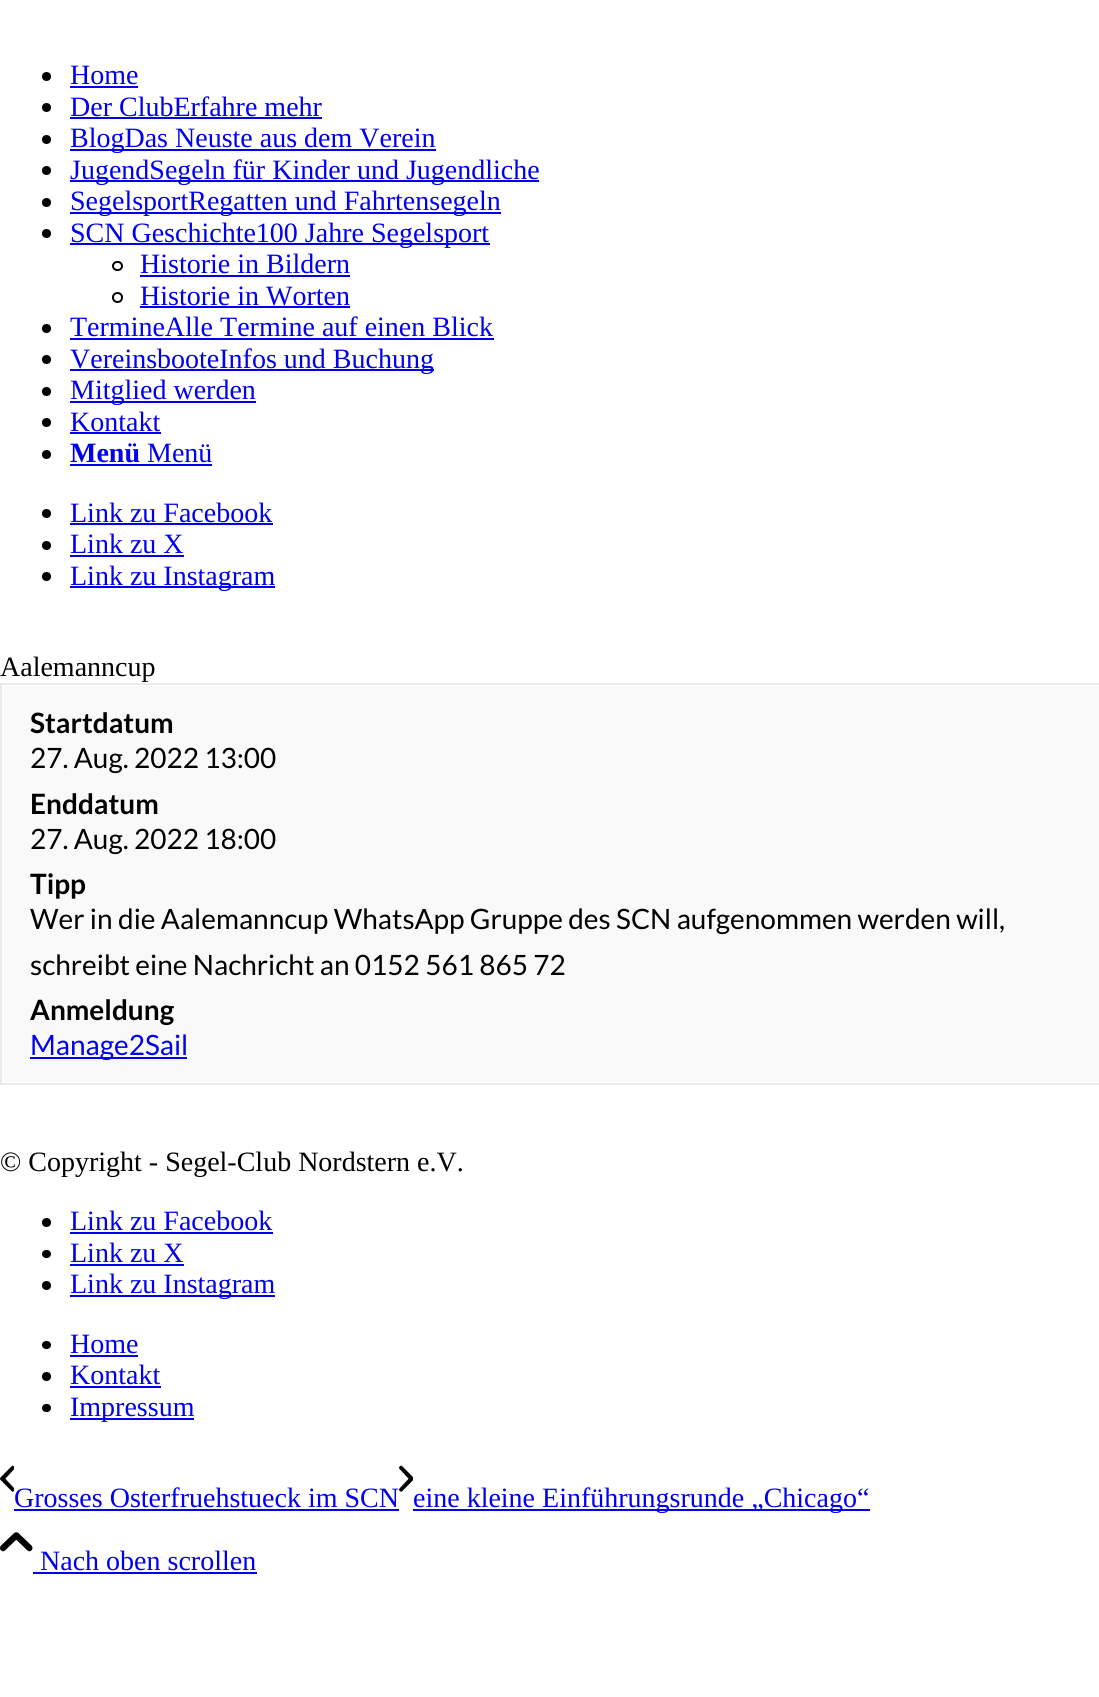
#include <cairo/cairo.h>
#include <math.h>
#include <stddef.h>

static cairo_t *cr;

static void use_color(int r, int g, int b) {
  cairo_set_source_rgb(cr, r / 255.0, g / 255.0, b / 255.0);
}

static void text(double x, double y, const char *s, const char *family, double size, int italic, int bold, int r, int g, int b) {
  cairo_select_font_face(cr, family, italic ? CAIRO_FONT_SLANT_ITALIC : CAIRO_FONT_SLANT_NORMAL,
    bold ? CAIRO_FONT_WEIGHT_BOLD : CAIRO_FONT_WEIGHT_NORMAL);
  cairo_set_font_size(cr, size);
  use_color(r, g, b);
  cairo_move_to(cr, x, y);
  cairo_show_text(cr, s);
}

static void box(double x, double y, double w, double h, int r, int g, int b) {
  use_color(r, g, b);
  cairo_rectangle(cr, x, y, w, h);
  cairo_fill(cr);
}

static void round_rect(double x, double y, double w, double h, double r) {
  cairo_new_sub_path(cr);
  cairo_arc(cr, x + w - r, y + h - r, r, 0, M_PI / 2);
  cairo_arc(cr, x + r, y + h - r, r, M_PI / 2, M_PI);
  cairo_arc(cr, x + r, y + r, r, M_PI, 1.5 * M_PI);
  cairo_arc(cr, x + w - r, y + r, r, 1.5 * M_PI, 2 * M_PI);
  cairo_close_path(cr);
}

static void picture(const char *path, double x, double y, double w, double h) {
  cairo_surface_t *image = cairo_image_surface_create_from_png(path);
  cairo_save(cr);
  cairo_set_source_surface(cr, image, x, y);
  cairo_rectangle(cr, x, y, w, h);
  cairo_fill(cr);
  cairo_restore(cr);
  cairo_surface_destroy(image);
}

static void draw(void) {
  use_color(255, 255, 255);
  cairo_paint(cr);
  use_color(0, 0, 0);
  cairo_arc(cr, 46.5, 76.5, 4.5, 0, 2 * M_PI);
  cairo_fill(cr);
  box(70, 86, 68, 2, 0, 0, 238);
  use_color(0, 0, 0);
  cairo_arc(cr, 46.5, 107.5, 4.5, 0, 2 * M_PI);
  cairo_fill(cr);
  box(70, 117, 252, 2, 0, 0, 238);
  use_color(0, 0, 0);
  cairo_arc(cr, 46.5, 139.5, 4.5, 0, 2 * M_PI);
  cairo_fill(cr);
  box(70, 149, 366, 2, 0, 0, 238);
  use_color(0, 0, 0);
  cairo_arc(cr, 46.5, 170.5, 4.5, 0, 2 * M_PI);
  cairo_fill(cr);
  box(70, 180, 469, 2, 0, 0, 238);
  use_color(0, 0, 0);
  cairo_arc(cr, 46.5, 202.5, 4.5, 0, 2 * M_PI);
  cairo_fill(cr);
  box(70, 212, 431, 2, 0, 0, 238);
  use_color(0, 0, 0);
  cairo_arc(cr, 46.5, 233.5, 4.5, 0, 2 * M_PI);
  cairo_fill(cr);
  box(70, 243, 420, 2, 0, 0, 238);
  round_rect(113, 262, 9, 8, 4);
  use_color(0, 0, 0);
  cairo_stroke(cr);
  box(140, 275, 210, 2, 0, 0, 238);
  cairo_arc(cr, 117.5, 297.5, 4.5, 0, 2 * M_PI);
  use_color(0, 0, 0);
  cairo_stroke(cr);
  box(140, 306, 210, 2, 0, 0, 238);
  use_color(0, 0, 0);
  cairo_arc(cr, 46.5, 328.5, 4.5, 0, 2 * M_PI);
  cairo_fill(cr);
  box(70, 338, 424, 2, 0, 0, 238);
  use_color(0, 0, 0);
  cairo_arc(cr, 46.5, 359.5, 4.5, 0, 2 * M_PI);
  cairo_fill(cr);
  box(70, 369, 364, 2, 0, 0, 238);
  use_color(0, 0, 0);
  cairo_arc(cr, 46.5, 391.5, 4.5, 0, 2 * M_PI);
  cairo_fill(cr);
  box(70, 401, 186, 2, 0, 0, 238);
  use_color(0, 0, 0);
  cairo_arc(cr, 46.5, 422.5, 4.5, 0, 2 * M_PI);
  cairo_fill(cr);
  box(70, 432, 91, 2, 0, 0, 238);
  use_color(0, 0, 0);
  cairo_arc(cr, 46.5, 454.5, 4.5, 0, 2 * M_PI);
  cairo_fill(cr);
  box(70, 464, 142, 2, 0, 0, 238);
  use_color(0, 0, 0);
  cairo_arc(cr, 46.5, 513.5, 4.5, 0, 2 * M_PI);
  cairo_fill(cr);
  box(70, 523, 203, 2, 0, 0, 238);
  use_color(0, 0, 0);
  cairo_arc(cr, 46.5, 545.5, 4.5, 0, 2 * M_PI);
  cairo_fill(cr);
  box(70, 555, 114, 2, 0, 0, 238);
  use_color(0, 0, 0);
  cairo_arc(cr, 46.5, 576.5, 4.5, 0, 2 * M_PI);
  cairo_fill(cr);
  box(70, 586, 205, 2, 0, 0, 238);
  cairo_rectangle(cr, 1, 684, 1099, 400);
  use_color(235, 235, 235);
  cairo_stroke(cr);
  box(4, 686, 1095, 396, 249, 249, 249);
  box(30, 1057, 157, 2, 0, 0, 238);
  use_color(0, 0, 0);
  cairo_arc(cr, 46.5, 1222.5, 4.5, 0, 2 * M_PI);
  cairo_fill(cr);
  box(70, 1232, 203, 2, 0, 0, 238);
  use_color(0, 0, 0);
  round_rect(42, 1250, 9, 8, 4);
  cairo_fill(cr);
  box(70, 1264, 114, 2, 0, 0, 238);
  use_color(0, 0, 0);
  cairo_arc(cr, 46.5, 1285.5, 4.5, 0, 2 * M_PI);
  cairo_fill(cr);
  box(70, 1295, 205, 2, 0, 0, 238);
  use_color(0, 0, 0);
  round_rect(42, 1341, 9, 8, 4);
  cairo_fill(cr);
  box(70, 1355, 68, 2, 0, 0, 238);
  use_color(0, 0, 0);
  cairo_arc(cr, 46.5, 1376.5, 4.5, 0, 2 * M_PI);
  cairo_fill(cr);
  box(70, 1386, 91, 2, 0, 0, 238);
  use_color(0, 0, 0);
  round_rect(42, 1404, 9, 8, 4);
  cairo_fill(cr);
  box(70, 1418, 124, 2, 0, 0, 238);
  picture("img_01.png", 0, 1465, 14, 27);
  picture("img_02.png", 399, 1465, 14, 27);
  box(14, 1509, 385, 2, 0, 0, 238);
  box(413, 1509, 457, 2, 0, 0, 238);
  picture("img_03.png", 0, 1532, 33, 20);
  box(33, 1572, 224, 2, 0, 0, 238);
  text(70, 84, "Home", "Liberation Serif", 28, 0, 0, 0, 0, 238);
  text(70, 116, "Der ClubErfahre mehr", "Liberation Serif", 28, 0, 0, 0, 0, 238);
  text(70, 147, "BlogDas Neuste aus dem Verein", "Liberation Serif", 28, 0, 0, 0, 0, 238);
  text(70, 179, "JugendSegeln für Kinder und Jugendliche", "Liberation Serif", 28, 0, 0, 0, 0, 238);
  text(70, 210, "SegelsportRegatten und Fahrtensegeln", "Liberation Serif", 28, 0, 0, 0, 0, 238);
  text(70, 242, "SCN Geschichte100 Jahre Segelsport", "Liberation Serif", 28, 0, 0, 0, 0, 238);
  text(140, 273, "Historie in Bildern", "Liberation Serif", 28, 0, 0, 0, 0, 238);
  text(140, 305, "Historie in Worten", "Liberation Serif", 28, 0, 0, 0, 0, 238);
  text(70, 336, "TermineAlle Termine auf einen Blick", "Liberation Serif", 28, 0, 0, 0, 0, 238);
  text(70, 368, "VereinsbooteInfos und Buchung", "Liberation Serif", 28, 0, 0, 0, 0, 238);
  text(70, 399, "Mitglied werden", "Liberation Serif", 28, 0, 0, 0, 0, 238);
  text(70, 431, "Kontakt", "Liberation Serif", 28, 0, 0, 0, 0, 238);
  text(70, 462, "Menü", "Liberation Serif", 28, 0, 1, 0, 0, 238);
  text(147, 462, "Menü", "Liberation Serif", 28, 0, 0, 0, 0, 238);
  text(70, 522, "Link zu Facebook", "Liberation Serif", 28, 0, 0, 0, 0, 238);
  text(70, 553, "Link zu X", "Liberation Serif", 28, 0, 0, 0, 0, 238);
  text(70, 585, "Link zu Instagram", "Liberation Serif", 28, 0, 0, 0, 0, 238);
  text(0, 676, "Aalemanncup", "Liberation Serif", 28, 0, 0, 0, 0, 0);
  text(30, 733, "Startdatum", "Lato", 28, 0, 1, 0, 0, 0);
  text(30, 768, "27. Aug. 2022 13:00", "Lato", 28, 0, 0, 0, 0, 0);
  text(30, 814, "Enddatum", "Lato", 28, 0, 1, 0, 0, 0);
  text(30, 849, "27. Aug. 2022 18:00", "Lato", 28, 0, 0, 0, 0, 0);
  text(30, 894, "Tipp", "Lato", 28, 0, 1, 0, 0, 0);
  text(30, 929, "Wer in die Aalemanncup WhatsApp Gruppe des SCN aufgenommen werden will,", "Lato", 28, 0, 0, 0, 0, 0);
  text(30, 975, "schreibt eine Nachricht an 0152 561 865 72", "Lato", 28, 0, 0, 0, 0, 0);
  text(30, 1020, "Anmeldung", "Lato", 28, 0, 1, 0, 0, 0);
  text(30, 1055, "Manage2Sail", "Lato", 28, 0, 0, 0, 0, 238);
  text(0, 1171, "© Copyright - Segel-Club Nordstern e.V.", "Liberation Serif", 28, 0, 0, 0, 0, 0);
  text(70, 1230, "Link zu Facebook", "Liberation Serif", 28, 0, 0, 0, 0, 238);
  text(70, 1262, "Link zu X", "Liberation Serif", 28, 0, 0, 0, 0, 238);
  text(70, 1293, "Link zu Instagram", "Liberation Serif", 28, 0, 0, 0, 0, 238);
  text(70, 1353, "Home", "Liberation Serif", 28, 0, 0, 0, 0, 238);
  text(70, 1384, "Kontakt", "Liberation Serif", 28, 0, 0, 0, 0, 238);
  text(70, 1416, "Impressum", "Liberation Serif", 28, 0, 0, 0, 0, 238);
  text(14, 1507, "Grosses Osterfruehstueck im SCN", "Liberation Serif", 28, 0, 0, 0, 0, 238);
  text(413, 1507, "eine kleine Einführungsrunde „Chicago“", "Liberation Serif", 28, 0, 0, 0, 0, 238);
  text(40, 1570, "Nach oben scrollen", "Liberation Serif", 28, 0, 0, 0, 0, 238);
}

int main(void) {
  cairo_surface_t *surface = cairo_image_surface_create(CAIRO_FORMAT_RGB24, 1099, 1697);
  cr = cairo_create(surface);
  cairo_font_options_t *options = cairo_font_options_create();
  cairo_font_options_set_hint_metrics(options, CAIRO_HINT_METRICS_OFF);
  cairo_font_options_set_hint_style(options, CAIRO_HINT_STYLE_NONE);
  cairo_set_font_options(cr, options);
  cairo_set_miter_limit(cr, 4);
  draw();
  cairo_surface_write_to_png(surface, "out.png");
  cairo_font_options_destroy(options);
  cairo_destroy(cr);
  cairo_surface_destroy(surface);
  return 0;
}
